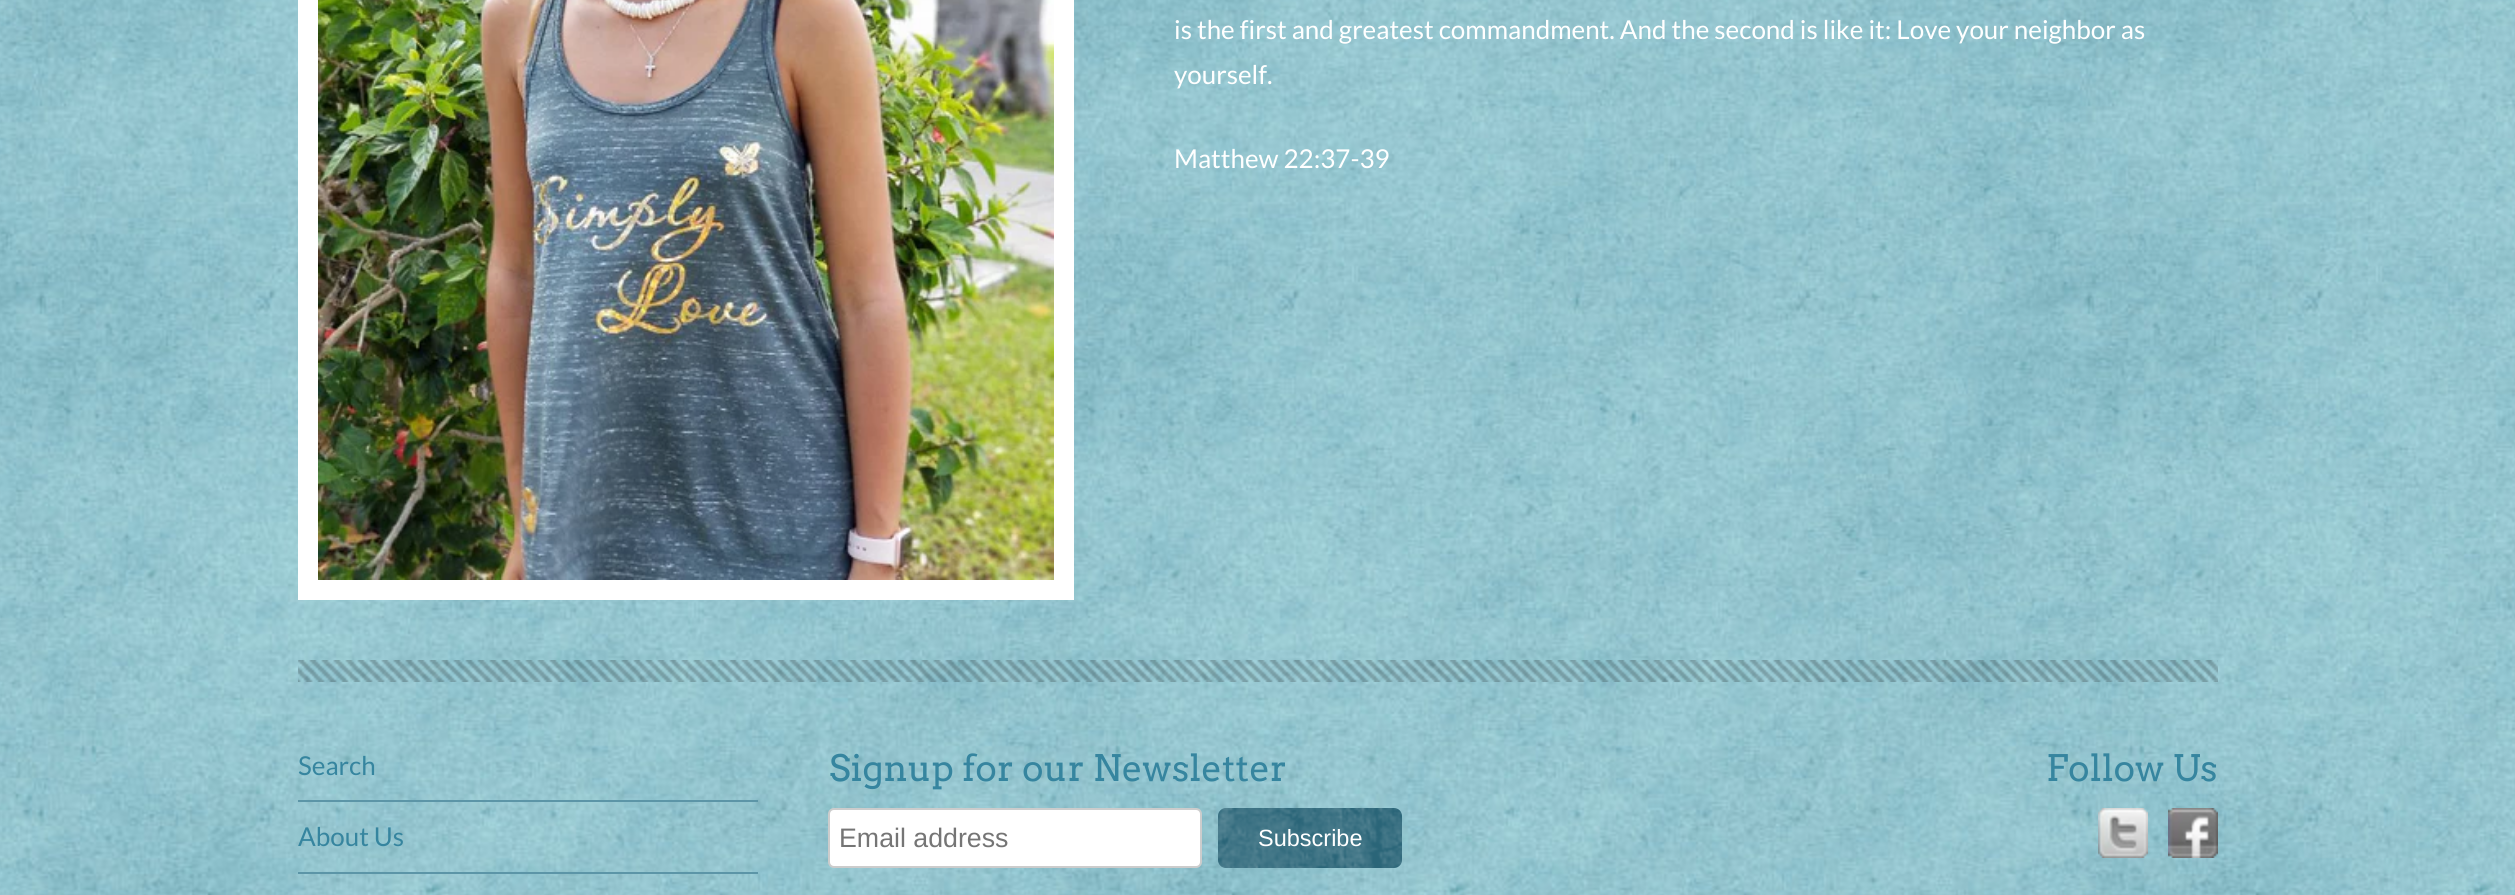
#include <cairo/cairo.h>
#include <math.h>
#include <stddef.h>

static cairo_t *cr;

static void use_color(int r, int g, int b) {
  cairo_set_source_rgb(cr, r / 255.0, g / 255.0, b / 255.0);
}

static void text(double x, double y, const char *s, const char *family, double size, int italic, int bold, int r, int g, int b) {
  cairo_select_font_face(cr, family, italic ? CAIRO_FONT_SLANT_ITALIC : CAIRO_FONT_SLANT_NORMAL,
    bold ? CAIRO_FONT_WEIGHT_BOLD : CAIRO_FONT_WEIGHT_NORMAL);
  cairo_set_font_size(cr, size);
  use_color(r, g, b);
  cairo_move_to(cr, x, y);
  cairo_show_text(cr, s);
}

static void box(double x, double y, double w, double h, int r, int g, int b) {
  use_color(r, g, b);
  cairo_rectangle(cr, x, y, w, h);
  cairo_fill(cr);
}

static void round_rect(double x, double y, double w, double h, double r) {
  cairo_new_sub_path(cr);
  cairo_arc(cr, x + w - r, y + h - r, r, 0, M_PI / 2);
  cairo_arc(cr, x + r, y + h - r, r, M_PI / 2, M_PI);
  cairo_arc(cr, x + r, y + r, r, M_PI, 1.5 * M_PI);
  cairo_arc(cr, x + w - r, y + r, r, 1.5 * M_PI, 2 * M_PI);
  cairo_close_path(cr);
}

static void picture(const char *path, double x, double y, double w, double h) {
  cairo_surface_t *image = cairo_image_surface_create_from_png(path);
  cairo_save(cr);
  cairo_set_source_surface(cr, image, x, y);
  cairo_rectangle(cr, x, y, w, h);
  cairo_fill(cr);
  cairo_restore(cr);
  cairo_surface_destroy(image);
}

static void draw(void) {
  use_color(255, 255, 255);
  cairo_paint(cr);
  picture("img_01.png", 0, 0, 2515, 895);
  cairo_rectangle(cr, 308, -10, 756, 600);
  use_color(255, 255, 255);
  cairo_set_line_width(cr, 20);
  cairo_stroke(cr);
  picture("img_02.png", 318, 0, 736, 580);
  picture("img_03.png", 298, 660, 1920, 22);
  box(298, 800, 460, 2, 92, 149, 167);
  box(298, 872, 460, 2, 92, 149, 167);
  use_color(255, 255, 255);
  round_rect(829, 809, 372, 58, 5);
  cairo_fill_preserve(cr);
  use_color(204, 204, 204);
  cairo_set_line_width(cr, 2);
  cairo_stroke(cr);
  use_color(42, 101, 120);
  round_rect(1218, 808, 184, 60, 8);
  cairo_fill(cr);
  picture("img_04.png", 1218, 808, 184, 60);
  picture("img_05.png", 2098, 808, 50, 50);
  picture("img_06.png", 2168, 808, 50, 50);
  text(1174, 39, "is the first and greatest commandment. And the second is like it: Love your neighbor as", "Lato", 26, 0, 0, 255, 255, 255);
  text(1174, 84, "yourself.", "Lato", 26, 0, 0, 255, 255, 255);
  text(1174, 168, "Matthew 22:37-39", "Lato", 26, 0, 0, 255, 255, 255);
  text(298, 775, "Search", "Lato", 26, 0, 0, 54, 133, 159);
  text(298, 846, "About Us", "Lato", 26, 0, 0, 54, 133, 159);
  text(829, 781, "Signup for our Newsletter", "Arvo", 36.4, 0, 0, 54, 133, 159);
  text(839, 847, "Email address", "Liberation Sans", 26.75, 0, 0, 117, 117, 117);
  text(1258, 846, "Subscribe", "Liberation Sans", 23.5, 0, 0, 255, 255, 255);
  text(2046, 781, "Follow Us", "Arvo", 36.4, 0, 0, 54, 133, 159);
}

int main(void) {
  cairo_surface_t *surface = cairo_image_surface_create(CAIRO_FORMAT_RGB24, 2515, 895);
  cr = cairo_create(surface);
  cairo_font_options_t *options = cairo_font_options_create();
  cairo_font_options_set_hint_metrics(options, CAIRO_HINT_METRICS_OFF);
  cairo_font_options_set_hint_style(options, CAIRO_HINT_STYLE_NONE);
  cairo_set_font_options(cr, options);
  cairo_set_miter_limit(cr, 4);
  draw();
  cairo_surface_write_to_png(surface, "out.png");
  cairo_font_options_destroy(options);
  cairo_destroy(cr);
  cairo_surface_destroy(surface);
  return 0;
}
